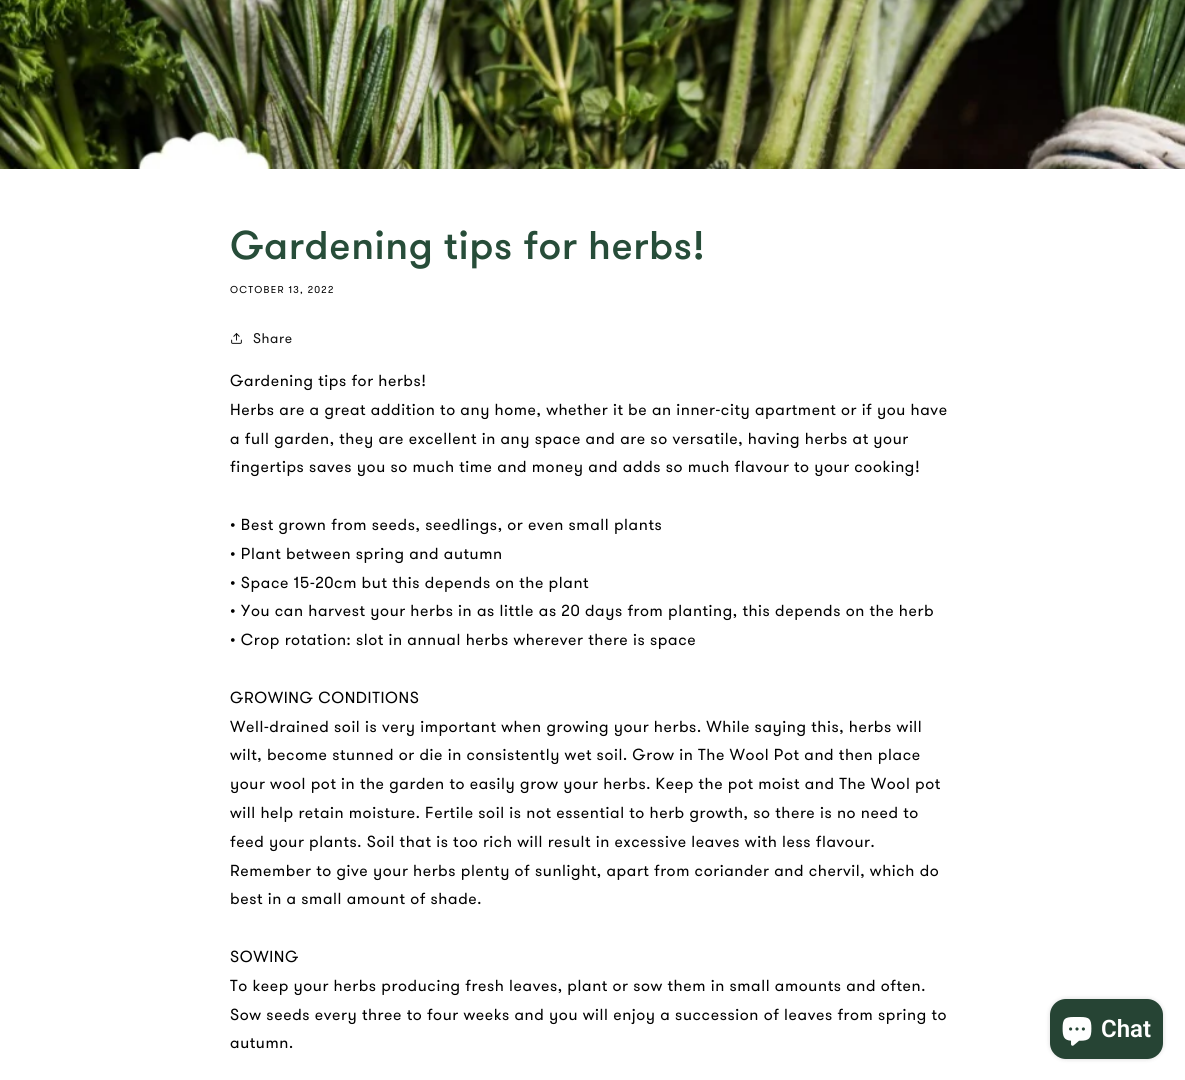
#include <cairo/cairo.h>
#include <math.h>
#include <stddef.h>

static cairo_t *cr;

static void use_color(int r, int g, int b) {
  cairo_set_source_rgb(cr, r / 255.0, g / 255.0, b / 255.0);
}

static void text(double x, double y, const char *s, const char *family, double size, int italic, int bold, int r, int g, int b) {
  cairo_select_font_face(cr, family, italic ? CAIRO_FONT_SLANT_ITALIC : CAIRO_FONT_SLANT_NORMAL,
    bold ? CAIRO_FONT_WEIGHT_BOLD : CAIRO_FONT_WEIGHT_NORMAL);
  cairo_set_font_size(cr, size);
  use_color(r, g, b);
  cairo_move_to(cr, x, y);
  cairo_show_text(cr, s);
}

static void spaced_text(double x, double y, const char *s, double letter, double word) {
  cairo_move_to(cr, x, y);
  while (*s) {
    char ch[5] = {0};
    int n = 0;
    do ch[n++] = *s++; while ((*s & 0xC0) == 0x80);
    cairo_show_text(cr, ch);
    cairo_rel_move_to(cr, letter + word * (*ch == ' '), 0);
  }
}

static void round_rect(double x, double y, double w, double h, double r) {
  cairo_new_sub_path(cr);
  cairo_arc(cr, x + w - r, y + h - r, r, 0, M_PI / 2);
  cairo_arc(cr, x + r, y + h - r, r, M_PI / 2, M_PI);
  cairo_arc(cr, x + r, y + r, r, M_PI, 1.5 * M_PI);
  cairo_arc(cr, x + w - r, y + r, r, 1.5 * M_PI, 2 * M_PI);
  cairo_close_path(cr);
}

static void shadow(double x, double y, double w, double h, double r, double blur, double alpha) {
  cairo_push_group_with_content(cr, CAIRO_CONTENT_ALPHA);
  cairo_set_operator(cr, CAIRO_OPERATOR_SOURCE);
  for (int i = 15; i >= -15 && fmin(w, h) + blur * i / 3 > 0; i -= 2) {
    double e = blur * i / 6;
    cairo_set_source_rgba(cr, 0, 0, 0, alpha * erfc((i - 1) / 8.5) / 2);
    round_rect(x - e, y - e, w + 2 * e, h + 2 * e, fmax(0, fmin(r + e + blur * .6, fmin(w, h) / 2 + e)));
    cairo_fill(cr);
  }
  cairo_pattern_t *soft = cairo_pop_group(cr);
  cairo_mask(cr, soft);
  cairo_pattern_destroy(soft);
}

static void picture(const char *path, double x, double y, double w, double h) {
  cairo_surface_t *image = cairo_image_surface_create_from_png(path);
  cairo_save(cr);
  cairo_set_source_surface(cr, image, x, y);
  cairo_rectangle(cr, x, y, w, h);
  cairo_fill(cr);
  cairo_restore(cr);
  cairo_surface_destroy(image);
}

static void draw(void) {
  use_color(255, 255, 255);
  cairo_paint(cr);
  picture("img_01.png", 0, 0, 1185, 169);
  picture("img_02.png", 231, 333, 11, 11);
  use_color(0, 0, 0);
  shadow(1050, 999, 113, 60, 16, 2.5, 0.15);
  use_color(38, 68, 52);
  round_rect(1050, 999, 113, 60, 16);
  cairo_fill(cr);
  picture("img_03.png", 1062, 1017, 30, 29);
  cairo_select_font_face(cr, "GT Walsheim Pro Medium", CAIRO_FONT_SLANT_NORMAL, CAIRO_FONT_WEIGHT_NORMAL);
  cairo_set_font_size(cr, 40);
  use_color(39, 77, 57);
  spaced_text(230, 259, "Gardening tips for herbs!", 0.6, 0);
  cairo_select_font_face(cr, "GT Walsheim Pro", CAIRO_FONT_SLANT_NORMAL, CAIRO_FONT_WEIGHT_NORMAL);
  cairo_set_font_size(cr, 10);
  use_color(0, 0, 0);
  spaced_text(230, 293, "OCTOBER 13, 2022", 1.25, 0);
  cairo_set_font_size(cr, 14);
  use_color(18, 18, 18);
  spaced_text(253, 343, "Share", 0.6, 0);
  cairo_set_font_size(cr, 16);
  use_color(0, 0, 0);
  spaced_text(230, 386, "Gardening tips for herbs!", 0.6, 0);
  spaced_text(230, 415, "Herbs are a great addition to any home, whether it be an inner-city apartment or if you have", 0.6, 0);
  spaced_text(230, 444, "a full garden, they are excellent in any space and are so versatile, having herbs at your", 0.6, 0);
  spaced_text(230, 472, "fingertips saves you so much time and money and adds so much flavour to your cooking!", 0.6, 0);
  spaced_text(230, 530, "• Best grown from seeds, seedlings, or even small plants", 0.6, 0);
  spaced_text(230, 559, "• Plant between spring and autumn", 0.6, 0);
  spaced_text(230, 588, "• Space 15-20cm but this depends on the plant", 0.6, 0);
  spaced_text(230, 616, "• You can harvest your herbs in as little as 20 days from planting, this depends on the herb", 0.6, 0);
  spaced_text(230, 645, "• Crop rotation: slot in annual herbs wherever there is space", 0.6, 0);
  spaced_text(230, 703, "GROWING CONDITIONS", 0.6, 0);
  spaced_text(230, 732, "Well-drained soil is very important when growing your herbs. While saying this, herbs will", 0.6, 0);
  spaced_text(230, 760, "wilt, become stunned or die in consistently wet soil. Grow in The Wool Pot and then place", 0.6, 0);
  spaced_text(230, 789, "your wool pot in the garden to easily grow your herbs. Keep the pot moist and The Wool pot", 0.6, 0);
  spaced_text(230, 818, "will help retain moisture. Fertile soil is not essential to herb growth, so there is no need to", 0.6, 0);
  spaced_text(230, 847, "feed your plants. Soil that is too rich will result in excessive leaves with less flavour.", 0.6, 0);
  spaced_text(230, 876, "Remember to give your herbs plenty of sunlight, apart from coriander and chervil, which do", 0.6, 0);
  spaced_text(230, 904, "best in a small amount of shade.", 0.6, 0);
  spaced_text(230, 962, "SOWING", 0.6, 0);
  spaced_text(230, 991, "To keep your herbs producing fresh leaves, plant or sow them in small amounts and often.", 0.6, 0);
  spaced_text(230, 1020, "Sow seeds every three to four weeks and you will enjoy a succession of leaves from spring to", 0.6, 0);
  spaced_text(230, 1048, "autumn.", 0.6, 0);
  text(1101, 1037, "Chat", "Roboto SemiBold", 24, 0, 0, 255, 255, 255);
}

int main(void) {
  cairo_surface_t *surface = cairo_image_surface_create(CAIRO_FORMAT_RGB24, 1185, 1080);
  cr = cairo_create(surface);
  cairo_font_options_t *options = cairo_font_options_create();
  cairo_font_options_set_hint_metrics(options, CAIRO_HINT_METRICS_OFF);
  cairo_font_options_set_hint_style(options, CAIRO_HINT_STYLE_NONE);
  cairo_set_font_options(cr, options);
  cairo_set_miter_limit(cr, 4);
  draw();
  cairo_surface_write_to_png(surface, "out.png");
  cairo_font_options_destroy(options);
  cairo_destroy(cr);
  cairo_surface_destroy(surface);
  return 0;
}
